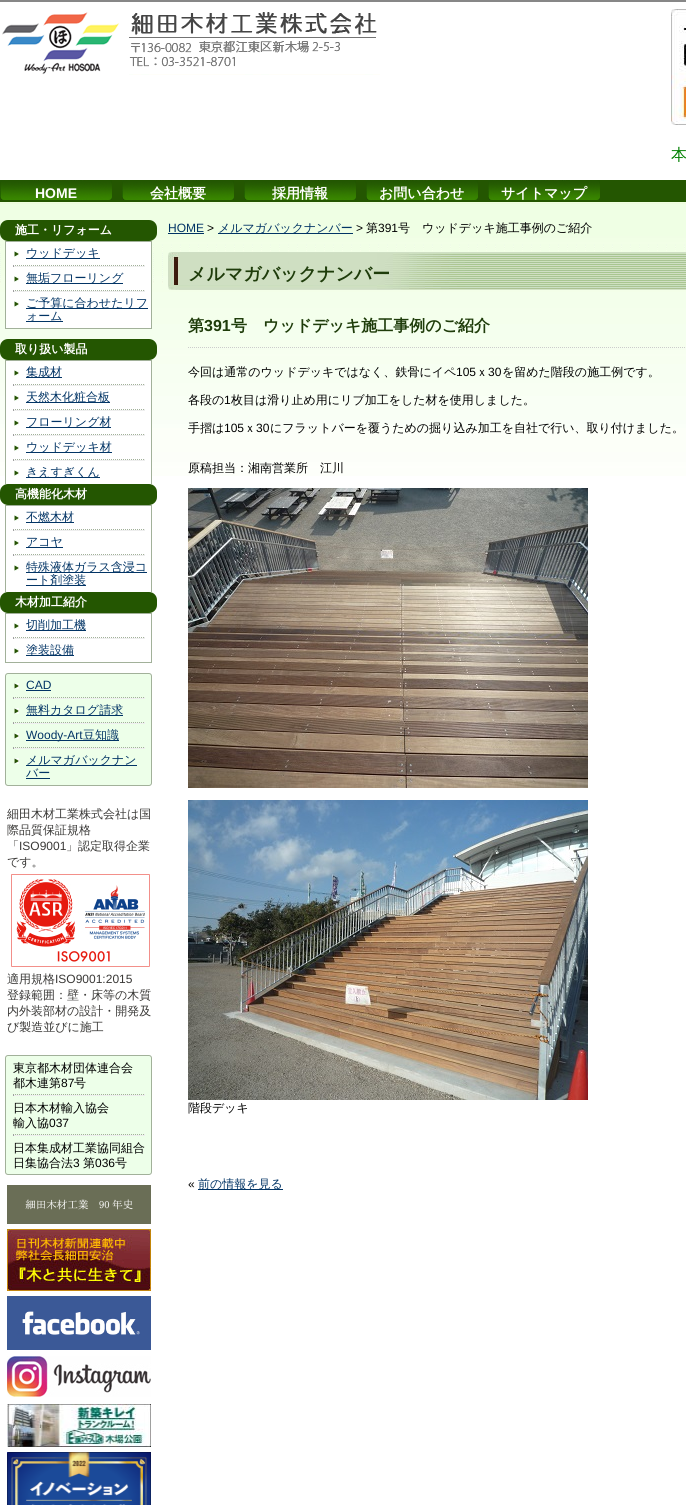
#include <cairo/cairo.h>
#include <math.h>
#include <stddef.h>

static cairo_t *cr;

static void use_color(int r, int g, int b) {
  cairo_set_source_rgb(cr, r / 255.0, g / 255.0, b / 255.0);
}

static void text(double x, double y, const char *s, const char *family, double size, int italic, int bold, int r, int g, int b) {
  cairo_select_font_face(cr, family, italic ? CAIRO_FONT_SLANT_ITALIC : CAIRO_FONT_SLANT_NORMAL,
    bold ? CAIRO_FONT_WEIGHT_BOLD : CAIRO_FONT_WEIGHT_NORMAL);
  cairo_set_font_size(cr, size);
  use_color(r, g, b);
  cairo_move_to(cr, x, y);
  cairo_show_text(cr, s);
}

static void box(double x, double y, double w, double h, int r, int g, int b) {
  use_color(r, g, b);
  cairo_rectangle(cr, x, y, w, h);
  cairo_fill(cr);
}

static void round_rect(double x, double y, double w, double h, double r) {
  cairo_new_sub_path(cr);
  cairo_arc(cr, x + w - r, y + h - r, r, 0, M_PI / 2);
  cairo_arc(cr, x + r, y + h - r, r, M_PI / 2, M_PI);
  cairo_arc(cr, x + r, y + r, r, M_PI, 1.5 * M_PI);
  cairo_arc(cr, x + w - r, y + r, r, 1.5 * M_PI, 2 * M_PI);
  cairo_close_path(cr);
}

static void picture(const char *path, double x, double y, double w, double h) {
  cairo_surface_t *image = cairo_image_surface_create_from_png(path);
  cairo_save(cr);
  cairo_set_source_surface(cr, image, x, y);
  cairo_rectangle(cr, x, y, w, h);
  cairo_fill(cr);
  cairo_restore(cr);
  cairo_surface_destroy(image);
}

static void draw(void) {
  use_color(255, 255, 255);
  cairo_paint(cr);
  box(0, 0, 686, 2, 135, 135, 135);
  picture("img_01.png", 2, 12, 378, 63);
  picture("img_02.png", 671, 9, 15, 116);
  box(0, 180, 686, 22, 36, 86, 1);
  picture("img_03.png", 0, 180, 112, 20);
  picture("img_03.png", 122, 180, 112, 20);
  picture("img_03.png", 244, 180, 112, 20);
  picture("img_03.png", 366, 180, 112, 20);
  picture("img_03.png", 488, 180, 112, 20);
  picture("img_04.png", 0, 202, 686, 274);
  round_rect(0, 220, 157, 21, 8);
  cairo_fill(cr);
  use_color(255, 255, 255);
  cairo_rectangle(cr, 5.5, 241.5, 146, 87);
  cairo_fill_preserve(cr);
  use_color(162, 177, 154);
  cairo_set_line_width(cr, 1);
  cairo_stroke(cr);
  picture("img_05.png", 14, 251, 5, 6);
  box(26, 258, 74, 1, 2, 52, 101);
  cairo_new_path(cr);
  cairo_move_to(cr, 13, 265.5);
  cairo_line_to(cr, 145, 265.5);
  use_color(162, 177, 154);
  cairo_set_dash(cr, (double[]){1, 1}, 2, 0);
  cairo_stroke(cr);
  box(144, 265, 1, 2, 238, 238, 238);
  box(13, 266, 132, 1, 238, 238, 238);
  box(13, 265, 1, 2, 159, 159, 159);
  picture("img_05.png", 14, 276, 5, 6);
  box(26, 283, 97, 1, 2, 52, 101);
  cairo_new_path(cr);
  cairo_move_to(cr, 13, 290.5);
  cairo_line_to(cr, 145, 290.5);
  use_color(162, 177, 154);
  cairo_stroke(cr);
  box(144, 290, 1, 2, 238, 238, 238);
  box(13, 291, 132, 1, 238, 238, 238);
  box(13, 290, 1, 2, 159, 159, 159);
  picture("img_05.png", 14, 301, 5, 6);
  box(26, 308, 122, 1, 2, 52, 101);
  box(26, 321, 37, 1, 2, 52, 101);
  use_color(36, 86, 1);
  round_rect(0, 339, 157, 21, 8);
  cairo_fill(cr);
  box(6, 361, 145, 115, 255, 255, 255);
  box(5, 360, 147, 1, 162, 177, 154);
  box(151, 360, 1, 124, 162, 177, 154);
  box(5, 360, 1, 124, 162, 177, 154);
  picture("img_05.png", 14, 370, 5, 6);
  box(26, 377, 36, 1, 2, 52, 101);
  cairo_new_path(cr);
  cairo_move_to(cr, 13, 384.5);
  cairo_line_to(cr, 145, 384.5);
  use_color(162, 177, 154);
  cairo_stroke(cr);
  box(144, 384, 1, 2, 238, 238, 238);
  box(13, 385, 132, 1, 238, 238, 238);
  box(13, 384, 1, 2, 159, 159, 159);
  picture("img_05.png", 14, 395, 5, 6);
  box(26, 402, 84, 1, 2, 52, 101);
  cairo_new_path(cr);
  cairo_move_to(cr, 13, 409.5);
  cairo_line_to(cr, 145, 409.5);
  use_color(162, 177, 154);
  cairo_stroke(cr);
  box(144, 409, 1, 2, 238, 238, 238);
  box(13, 410, 132, 1, 238, 238, 238);
  box(13, 409, 1, 2, 159, 159, 159);
  picture("img_05.png", 14, 420, 5, 6);
  box(26, 427, 85, 1, 2, 52, 101);
  cairo_new_path(cr);
  cairo_move_to(cr, 13, 434.5);
  cairo_line_to(cr, 145, 434.5);
  use_color(162, 177, 154);
  cairo_stroke(cr);
  box(144, 434, 1, 2, 238, 238, 238);
  box(13, 435, 132, 1, 238, 238, 238);
  box(13, 434, 1, 2, 159, 159, 159);
  picture("img_05.png", 14, 445, 5, 6);
  box(26, 452, 86, 1, 2, 52, 101);
  cairo_new_path(cr);
  cairo_move_to(cr, 13, 459.5);
  cairo_line_to(cr, 145, 459.5);
  use_color(162, 177, 154);
  cairo_stroke(cr);
  box(144, 459, 1, 2, 238, 238, 238);
  box(13, 460, 132, 1, 238, 238, 238);
  box(13, 459, 1, 2, 159, 159, 159);
  picture("img_05.png", 14, 470, 5, 6);
  box(26, 477, 74, 1, 2, 52, 101);
  use_color(36, 86, 1);
  round_rect(0, 484, 157, 21, 8);
  cairo_fill(cr);
  box(5, 505, 147, 1, 162, 177, 154);
  box(151, 505, 1, 87, 162, 177, 154);
  box(5, 505, 1, 87, 162, 177, 154);
  picture("img_05.png", 14, 515, 5, 6);
  box(26, 522, 48, 1, 2, 52, 101);
  cairo_new_path(cr);
  cairo_move_to(cr, 13, 529.5);
  cairo_line_to(cr, 145, 529.5);
  use_color(162, 177, 154);
  cairo_stroke(cr);
  box(144, 529, 1, 2, 238, 238, 238);
  box(13, 530, 132, 1, 238, 238, 238);
  box(13, 529, 1, 2, 159, 159, 159);
  picture("img_05.png", 14, 540, 5, 6);
  box(26, 547, 37, 1, 2, 52, 101);
  cairo_new_path(cr);
  cairo_move_to(cr, 13, 554.5);
  cairo_line_to(cr, 145, 554.5);
  use_color(162, 177, 154);
  cairo_stroke(cr);
  box(144, 554, 1, 2, 238, 238, 238);
  box(13, 555, 132, 1, 238, 238, 238);
  box(13, 554, 1, 2, 159, 159, 159);
  picture("img_05.png", 14, 565, 5, 6);
  box(26, 572, 121, 1, 2, 52, 101);
  box(26, 585, 60, 1, 2, 52, 101);
  use_color(36, 86, 1);
  round_rect(0, 592, 157, 21, 8);
  cairo_fill(cr);
  cairo_rectangle(cr, 5.5, 613.5, 146, 49);
  use_color(162, 177, 154);
  cairo_set_dash(cr, NULL, 0, 0);
  cairo_stroke(cr);
  picture("img_05.png", 14, 623, 5, 6);
  box(26, 630, 60, 1, 2, 52, 101);
  cairo_new_path(cr);
  cairo_move_to(cr, 13, 637.5);
  cairo_line_to(cr, 145, 637.5);
  use_color(162, 177, 154);
  cairo_set_dash(cr, (double[]){1, 1}, 2, 0);
  cairo_stroke(cr);
  box(144, 637, 1, 2, 238, 238, 238);
  box(13, 638, 132, 1, 238, 238, 238);
  box(13, 637, 1, 2, 159, 159, 159);
  picture("img_05.png", 14, 648, 5, 6);
  box(26, 655, 48, 1, 2, 52, 101);
  use_color(237, 255, 233);
  round_rect(5.5, 673.5, 146, 112, 2.5);
  cairo_fill_preserve(cr);
  use_color(162, 177, 154);
  cairo_set_dash(cr, NULL, 0, 0);
  cairo_stroke(cr);
  picture("img_05.png", 14, 683, 5, 6);
  box(26, 690, 25, 1, 2, 52, 101);
  cairo_new_path(cr);
  cairo_move_to(cr, 13, 697.5);
  cairo_line_to(cr, 145, 697.5);
  use_color(162, 177, 154);
  cairo_set_dash(cr, (double[]){1, 1}, 2, 0);
  cairo_stroke(cr);
  box(144, 697, 1, 2, 238, 238, 238);
  box(13, 698, 132, 1, 238, 238, 238);
  box(13, 697, 1, 2, 159, 159, 159);
  picture("img_05.png", 14, 708, 5, 6);
  box(26, 715, 97, 1, 2, 52, 101);
  cairo_new_path(cr);
  cairo_move_to(cr, 13, 722.5);
  cairo_line_to(cr, 145, 722.5);
  use_color(162, 177, 154);
  cairo_stroke(cr);
  box(144, 722, 1, 2, 238, 238, 238);
  box(13, 723, 132, 1, 238, 238, 238);
  box(13, 722, 1, 2, 159, 159, 159);
  picture("img_05.png", 14, 733, 5, 6);
  box(26, 740, 93, 1, 2, 52, 101);
  cairo_new_path(cr);
  cairo_move_to(cr, 13, 747.5);
  cairo_line_to(cr, 145, 747.5);
  use_color(162, 177, 154);
  cairo_stroke(cr);
  box(144, 747, 1, 2, 238, 238, 238);
  box(13, 748, 132, 1, 238, 238, 238);
  box(13, 747, 1, 2, 159, 159, 159);
  picture("img_05.png", 14, 758, 5, 6);
  box(26, 765, 111, 1, 2, 52, 101);
  box(26, 778, 24, 1, 2, 52, 101);
  picture("img_06.png", 11, 874, 139, 93);
  use_color(237, 255, 233);
  round_rect(5.5, 1055.5, 146, 119, 2.5);
  cairo_fill_preserve(cr);
  use_color(162, 177, 154);
  cairo_set_dash(cr, NULL, 0, 0);
  cairo_stroke(cr);
  cairo_new_path(cr);
  cairo_move_to(cr, 13, 1094.5);
  cairo_line_to(cr, 145, 1094.5);
  cairo_set_dash(cr, (double[]){1, 1}, 2, 0);
  cairo_stroke(cr);
  box(144, 1094, 1, 2, 238, 238, 238);
  box(13, 1095, 132, 1, 238, 238, 238);
  box(13, 1094, 1, 2, 159, 159, 159);
  cairo_new_path(cr);
  cairo_move_to(cr, 13, 1134.5);
  cairo_line_to(cr, 145, 1134.5);
  use_color(162, 177, 154);
  cairo_stroke(cr);
  box(144, 1134, 1, 2, 238, 238, 238);
  box(13, 1135, 132, 1, 238, 238, 238);
  box(13, 1134, 1, 2, 159, 159, 159);
  picture("img_07.png", 7, 1185, 144, 39);
  picture("img_08.png", 7, 1229, 144, 62);
  picture("img_09.png", 7, 1296, 144, 54);
  picture("img_10.png", 7, 1356, 144, 42);
  picture("img_11.png", 7, 1404, 144, 43);
  picture("img_12.png", 7, 1452, 144, 53);
  box(168, 233, 36, 1, 2, 52, 101);
  box(218, 233, 135, 1, 2, 52, 101);
  picture("img_13.png", 168, 252, 518, 38);
  cairo_new_path(cr);
  cairo_move_to(cr, 188, 347.5);
  cairo_line_to(cr, 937, 347.5);
  use_color(204, 204, 204);
  cairo_stroke(cr);
  picture("img_14.png", 188, 488, 400, 300);
  picture("img_15.png", 188, 800, 400, 300);
  box(198, 1189, 85, 1, 2, 52, 101);
  text(671, 160, "本", "WenQuanYi Zen Hei Medium", 16, 0, 0, 0, 128, 0);
  text(35, 198, "HOME", "Liberation Sans", 14, 0, 1, 255, 255, 255);
  text(150, 198, "会社概要", "WenQuanYi Zen Hei", 14, 0, 1, 255, 255, 255);
  text(272, 198, "採用情報", "WenQuanYi Zen Hei", 14, 0, 1, 255, 255, 255);
  text(379, 198, "お問い合わせ", "WenQuanYi Zen Hei", 14, 0, 1, 255, 255, 255);
  text(501, 198, "サイトマップ", "WenQuanYi Zen Hei", 14, 0, 1, 255, 255, 255);
  text(15, 234, "施工・リフォーム", "WenQuanYi Zen Hei", 12, 0, 1, 255, 255, 255);
  text(26, 257, "ウッドデッキ", "WenQuanYi Zen Hei Medium", 12, 0, 0, 2, 52, 101);
  text(26, 282, "無垢フローリング", "WenQuanYi Zen Hei Medium", 12, 0, 0, 2, 52, 101);
  text(26, 307, "ご予算に合わせたリフ", "WenQuanYi Zen Hei Medium", 12, 0, 0, 2, 52, 101);
  text(26, 320, "ォーム", "WenQuanYi Zen Hei Medium", 12, 0, 0, 2, 52, 101);
  text(15, 353, "取り扱い製品", "WenQuanYi Zen Hei", 12, 0, 1, 255, 255, 255);
  text(26, 376, "集成材", "WenQuanYi Zen Hei Medium", 12, 0, 0, 2, 52, 101);
  text(26, 401, "天然木化粧合板", "WenQuanYi Zen Hei Medium", 12, 0, 0, 2, 52, 101);
  text(26, 426, "フローリング材", "WenQuanYi Zen Hei Medium", 12, 0, 0, 2, 52, 101);
  text(26, 451, "ウッドデッキ材", "WenQuanYi Zen Hei Medium", 12, 0, 0, 2, 52, 101);
  text(26, 476, "きえすぎくん", "WenQuanYi Zen Hei Medium", 12, 0, 0, 2, 52, 101);
  text(15, 498, "高機能化木材", "WenQuanYi Zen Hei", 12, 0, 1, 255, 255, 255);
  text(26, 521, "不燃木材", "WenQuanYi Zen Hei Medium", 12, 0, 0, 2, 52, 101);
  text(26, 546, "アコヤ", "WenQuanYi Zen Hei Medium", 12, 0, 0, 2, 52, 101);
  text(26, 571, "特殊液体ガラス含浸コ", "WenQuanYi Zen Hei Medium", 12, 0, 0, 2, 52, 101);
  text(26, 584, "ート剤塗装", "WenQuanYi Zen Hei Medium", 12, 0, 0, 2, 52, 101);
  text(15, 606, "木材加工紹介", "WenQuanYi Zen Hei", 12, 0, 1, 255, 255, 255);
  text(26, 629, "切削加工機", "WenQuanYi Zen Hei Medium", 12, 0, 0, 2, 52, 101);
  text(26, 654, "塗装設備", "WenQuanYi Zen Hei Medium", 12, 0, 0, 2, 52, 101);
  text(26, 689, "CAD", "Liberation Sans", 12, 0, 0, 2, 52, 101);
  text(26, 714, "無料カタログ請求", "WenQuanYi Zen Hei Medium", 12, 0, 0, 2, 52, 101);
  text(26, 739, "Woody-Art", "Liberation Sans", 12, 0, 0, 2, 52, 101);
  text(83, 739, "豆知識", "WenQuanYi Zen Hei Medium", 12, 0, 0, 2, 52, 101);
  text(26, 764, "メルマガバックナン", "WenQuanYi Zen Hei Medium", 12, 0, 0, 2, 52, 101);
  text(26, 777, "バー", "WenQuanYi Zen Hei Medium", 12, 0, 0, 2, 52, 101);
  text(7, 818, "細田木材工業株式会社は国", "WenQuanYi Zen Hei Medium", 12, 0, 0, 58, 57, 55);
  text(7, 834, "際品質保証規格", "WenQuanYi Zen Hei Medium", 12, 0, 0, 58, 57, 55);
  text(7, 850, "「", "WenQuanYi Zen Hei Medium", 12, 0, 0, 58, 57, 55);
  text(19, 850, "ISO9001", "Liberation Sans", 12, 0, 0, 58, 57, 55);
  text(66, 850, "」認定取得企業", "WenQuanYi Zen Hei Medium", 12, 0, 0, 58, 57, 55);
  text(7, 866, "です。", "WenQuanYi Zen Hei Medium", 12, 0, 0, 58, 57, 55);
  text(7, 983, "適用規格", "WenQuanYi Zen Hei Medium", 12, 0, 0, 58, 57, 55);
  text(55, 983, "ISO9001:2015", "Liberation Sans", 12, 0, 0, 58, 57, 55);
  text(7, 999, "登録範囲：壁・床等の木質", "WenQuanYi Zen Hei Medium", 12, 0, 0, 58, 57, 55);
  text(7, 1015, "内外装部材の設計・開発及", "WenQuanYi Zen Hei Medium", 12, 0, 0, 58, 57, 55);
  text(7, 1031, "び製造並びに施工", "WenQuanYi Zen Hei Medium", 12, 0, 0, 58, 57, 55);
  text(13, 1072, "東京都木材団体連合会", "WenQuanYi Zen Hei Medium", 12, 0, 0, 0, 0, 0);
  text(13, 1087, "都木連第", "WenQuanYi Zen Hei Medium", 12, 0, 0, 0, 0, 0);
  text(61, 1087, "87", "Liberation Sans", 12, 0, 0, 0, 0, 0);
  text(74, 1087, "号", "WenQuanYi Zen Hei Medium", 12, 0, 0, 0, 0, 0);
  text(13, 1112, "日本木材輸入協会", "WenQuanYi Zen Hei Medium", 12, 0, 0, 0, 0, 0);
  text(13, 1127, "輸入協", "WenQuanYi Zen Hei Medium", 12, 0, 0, 0, 0, 0);
  text(49, 1127, "037", "Liberation Sans", 12, 0, 0, 0, 0, 0);
  text(13, 1152, "日本集成材工業協同組合", "WenQuanYi Zen Hei Medium", 12, 0, 0, 0, 0, 0);
  text(13, 1167, "日集協合法", "WenQuanYi Zen Hei Medium", 12, 0, 0, 0, 0, 0);
  text(73, 1167, "3", "Liberation Sans", 12, 0, 0, 0, 0, 0);
  text(83, 1167, "第", "WenQuanYi Zen Hei Medium", 12, 0, 0, 0, 0, 0);
  text(95, 1167, "036", "Liberation Sans", 12, 0, 0, 0, 0, 0);
  text(115, 1167, "号", "WenQuanYi Zen Hei Medium", 12, 0, 0, 0, 0, 0);
  text(168, 232, "HOME", "Liberation Sans", 12, 0, 0, 2, 52, 101);
  text(207, 232, ">", "Liberation Sans", 12, 0, 0, 0, 0, 0);
  text(218, 232, "メルマガバックナンバー", "WenQuanYi Zen Hei Medium", 12, 0, 0, 2, 52, 101);
  text(356, 232, ">", "Liberation Sans", 12, 0, 0, 0, 0, 0);
  text(366, 232, "第", "WenQuanYi Zen Hei Medium", 12, 0, 0, 0, 0, 0);
  text(378, 232, "391", "Liberation Sans", 12, 0, 0, 0, 0, 0);
  text(398, 232, "号　ウッドデッキ施工事例のご紹介", "WenQuanYi Zen Hei Medium", 12, 0, 0, 0, 0, 0);
  text(188, 280, "メルマガバックナンバー", "WenQuanYi Zen Hei", 18, 0, 1, 30, 60, 10);
  text(188, 331, "第", "WenQuanYi Zen Hei", 16, 0, 1, 30, 60, 10);
  text(204, 331, "391", "Liberation Sans", 16, 0, 1, 30, 60, 10);
  text(231, 331, "号　ウッドデッキ施工事例のご紹介", "WenQuanYi Zen Hei", 16, 0, 1, 30, 60, 10);
  text(188, 376, "今回は通常のウッドデッキではなく、鉄骨にイペ", "WenQuanYi Zen Hei Medium", 12, 0, 0, 0, 0, 0);
  text(456, 376, "105", "Liberation Sans", 12, 0, 0, 0, 0, 0);
  text(476, 376, "ｘ", "WenQuanYi Zen Hei Medium", 12, 0, 0, 0, 0, 0);
  text(488, 376, "30", "Liberation Sans", 12, 0, 0, 0, 0, 0);
  text(502, 376, "を留めた階段の施工例です。", "WenQuanYi Zen Hei Medium", 12, 0, 0, 0, 0, 0);
  text(188, 404, "各段の", "WenQuanYi Zen Hei Medium", 12, 0, 0, 0, 0, 0);
  text(224, 404, "1", "Liberation Sans", 12, 0, 0, 0, 0, 0);
  text(231, 404, "枚目は滑り止め用にリブ加工をした材を使用しました。", "WenQuanYi Zen Hei Medium", 12, 0, 0, 0, 0, 0);
  text(188, 432, "手摺は", "WenQuanYi Zen Hei Medium", 12, 0, 0, 0, 0, 0);
  text(224, 432, "105", "Liberation Sans", 12, 0, 0, 0, 0, 0);
  text(244, 432, "ｘ", "WenQuanYi Zen Hei Medium", 12, 0, 0, 0, 0, 0);
  text(256, 432, "30", "Liberation Sans", 12, 0, 0, 0, 0, 0);
  text(270, 432, "にフラットバーを覆うための掘り込み加工を自社で行い、取り付けました。", "WenQuanYi Zen Hei Medium", 12, 0, 0, 0, 0, 0);
  text(188, 472, "原稿担当：湘南営業所　江川", "WenQuanYi Zen Hei Medium", 12, 0, 0, 0, 0, 0);
  text(188, 1112, "階段デッキ", "WenQuanYi Zen Hei Medium", 12, 0, 0, 0, 0, 0);
  text(188, 1188, "«", "Liberation Sans", 12, 0, 0, 0, 0, 0);
  text(198, 1188, "前の情報を見る", "WenQuanYi Zen Hei Medium", 12, 0, 0, 2, 52, 101);
}

int main(void) {
  cairo_surface_t *surface = cairo_image_surface_create(CAIRO_FORMAT_RGB24, 686, 1505);
  cr = cairo_create(surface);
  cairo_font_options_t *options = cairo_font_options_create();
  cairo_font_options_set_hint_metrics(options, CAIRO_HINT_METRICS_OFF);
  cairo_font_options_set_hint_style(options, CAIRO_HINT_STYLE_NONE);
  cairo_set_font_options(cr, options);
  cairo_set_miter_limit(cr, 4);
  draw();
  cairo_surface_write_to_png(surface, "out.png");
  cairo_font_options_destroy(options);
  cairo_destroy(cr);
  cairo_surface_destroy(surface);
  return 0;
}
